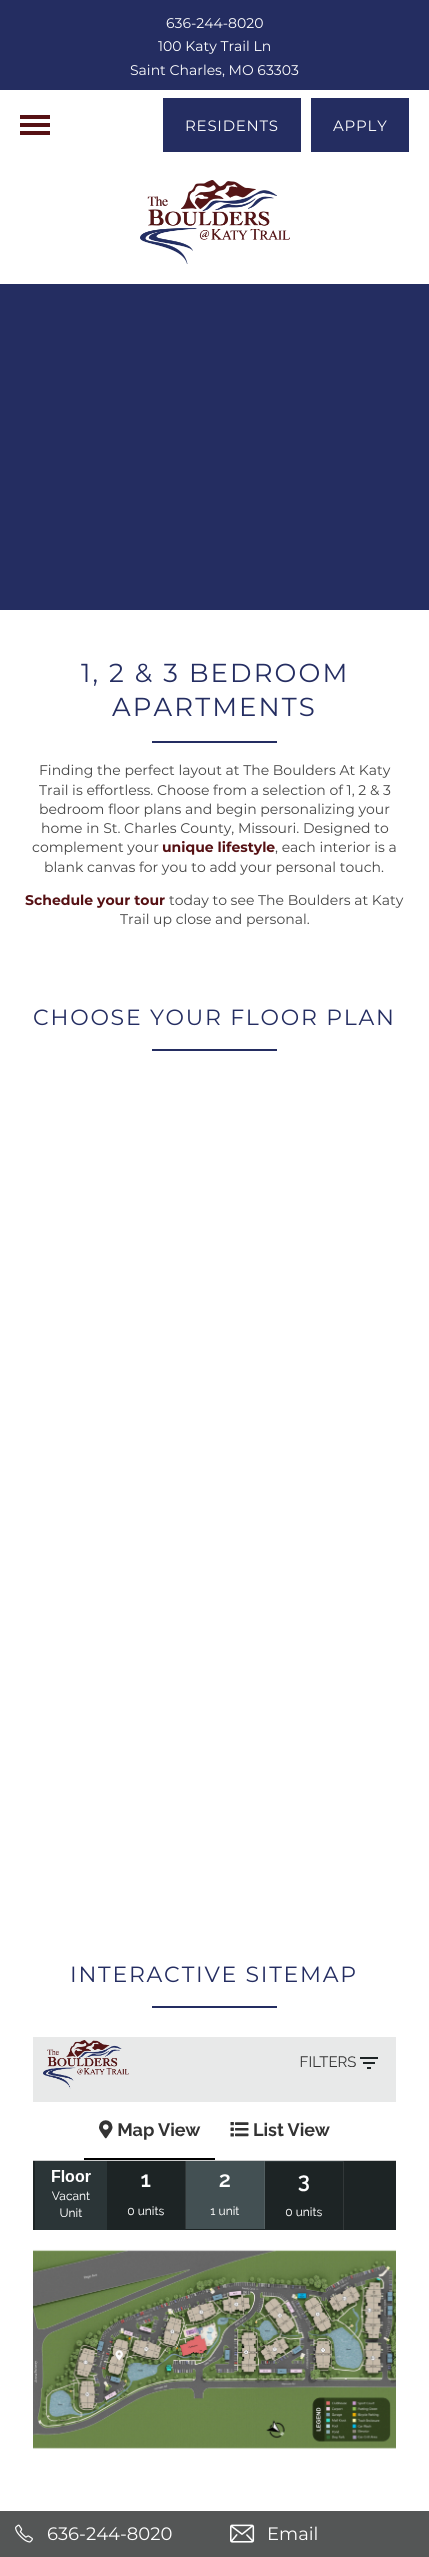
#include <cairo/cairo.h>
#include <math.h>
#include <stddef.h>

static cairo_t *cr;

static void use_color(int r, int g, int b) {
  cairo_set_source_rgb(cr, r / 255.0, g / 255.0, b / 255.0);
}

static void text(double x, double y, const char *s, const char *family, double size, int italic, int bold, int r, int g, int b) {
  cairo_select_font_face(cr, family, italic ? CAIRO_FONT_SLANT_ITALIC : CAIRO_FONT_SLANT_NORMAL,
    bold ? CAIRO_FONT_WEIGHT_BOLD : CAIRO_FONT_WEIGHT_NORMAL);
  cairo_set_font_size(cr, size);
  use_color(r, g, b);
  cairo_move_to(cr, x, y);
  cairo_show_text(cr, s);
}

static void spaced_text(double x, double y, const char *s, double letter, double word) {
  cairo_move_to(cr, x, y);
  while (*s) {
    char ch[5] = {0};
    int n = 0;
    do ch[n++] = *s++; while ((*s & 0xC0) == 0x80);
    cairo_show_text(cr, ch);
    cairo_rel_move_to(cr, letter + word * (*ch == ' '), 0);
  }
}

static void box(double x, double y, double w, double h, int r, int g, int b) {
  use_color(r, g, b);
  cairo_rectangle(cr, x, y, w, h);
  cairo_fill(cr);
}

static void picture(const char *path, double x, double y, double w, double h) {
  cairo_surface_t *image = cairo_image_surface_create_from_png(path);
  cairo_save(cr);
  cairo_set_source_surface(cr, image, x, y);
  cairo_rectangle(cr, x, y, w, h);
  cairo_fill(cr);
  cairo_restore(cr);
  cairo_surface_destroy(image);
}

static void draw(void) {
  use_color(255, 255, 255);
  cairo_paint(cr);
  box(0, 0, 429, 90, 36, 45, 97);
  box(20, 115, 30, 4, 86, 17, 20);
  box(20, 123, 30, 4, 86, 17, 20);
  box(20, 131, 30, 4, 86, 17, 20);
  box(163, 98, 138, 54, 36, 45, 97);
  box(311, 98, 98, 54, 36, 45, 97);
  picture("img_01.png", 140, 180, 150, 84);
  box(0, 284, 429, 326, 36, 45, 97);
  box(152, 741, 125, 2, 36, 45, 97);
  box(152, 1049, 125, 2, 36, 45, 97);
  box(152, 2006, 125, 2, 36, 45, 97);
  picture("img_02.png", 33, 2037, 363, 412);
  box(0, 2511, 429, 46, 84, 86, 86);
  picture("img_03.png", 15, 2524, 18, 19);
  picture("img_04.png", 230, 2524, 25, 19);
  text(166, 28, "636-244-8020", "Montserrat", 14, 0, 0, 255, 255, 255);
  text(158, 51, "100 Katy Trail Ln", "Montserrat", 14, 0, 0, 255, 255, 255);
  text(130, 75, "Saint Charles, MO 63303", "Montserrat", 14, 0, 0, 255, 255, 255);
  cairo_set_font_size(cr, 15);
  spaced_text(185, 131, "RESIDENTS", 0.75, 0);
  spaced_text(333, 131, "APPLY", 0.75, 0);
  cairo_set_font_size(cr, 26);
  use_color(36, 45, 97);
  spaced_text(81, 682, "1, 2 & 3 BEDROOM", 2.1, 0);
  spaced_text(112, 716, "APARTMENTS", 2.1, 0);
  text(39, 775, "Finding the perfect layout at The Boulders At Katy", "Montserrat", 14, 0, 0, 68, 68, 68);
  text(39, 795, "Trail is effortless. Choose from a selection of 1, 2 & 3", "Montserrat", 14, 0, 0, 68, 68, 68);
  text(39, 814, "bedroom floor plans and begin personalizing your", "Montserrat", 14, 0, 0, 68, 68, 68);
  text(41, 833, "home in St. Charles County, Missouri. Designed to", "Montserrat", 14, 0, 0, 68, 68, 68);
  text(32, 852, "complement your", "Montserrat", 14, 0, 0, 68, 68, 68);
  text(162, 852, "unique lifestyle", "Montserrat", 14, 0, 1, 86, 17, 20);
  text(275, 852, ", each interior is a", "Montserrat", 14, 0, 0, 68, 68, 68);
  text(44, 872, "blank canvas for you to add your personal touch.", "Montserrat", 14, 0, 0, 68, 68, 68);
  text(25, 905, "Schedule your tour", "Montserrat", 14, 0, 1, 86, 17, 20);
  text(169, 905, "today to see The Boulders at Katy", "Montserrat", 14, 0, 0, 68, 68, 68);
  text(120, 924, "Trail up close and personal.", "Montserrat", 14, 0, 0, 68, 68, 68);
  cairo_set_font_size(cr, 22);
  use_color(36, 45, 97);
  spaced_text(33, 1025, "CHOOSE YOUR FLOOR PLAN", 1.75, 0);
  spaced_text(70, 1982, "INTERACTIVE SITEMAP", 1.75, 0);
  text(47, 2540, "636-244-8020", "Montserrat", 18, 0, 0, 255, 255, 255);
  text(267, 2540, "Email", "Montserrat", 18, 0, 0, 255, 255, 255);
}

int main(void) {
  cairo_surface_t *surface = cairo_image_surface_create(CAIRO_FORMAT_RGB24, 429, 2557);
  cr = cairo_create(surface);
  cairo_font_options_t *options = cairo_font_options_create();
  cairo_font_options_set_hint_metrics(options, CAIRO_HINT_METRICS_OFF);
  cairo_font_options_set_hint_style(options, CAIRO_HINT_STYLE_NONE);
  cairo_set_font_options(cr, options);
  cairo_set_miter_limit(cr, 4);
  draw();
  cairo_surface_write_to_png(surface, "out.png");
  cairo_font_options_destroy(options);
  cairo_destroy(cr);
  cairo_surface_destroy(surface);
  return 0;
}
